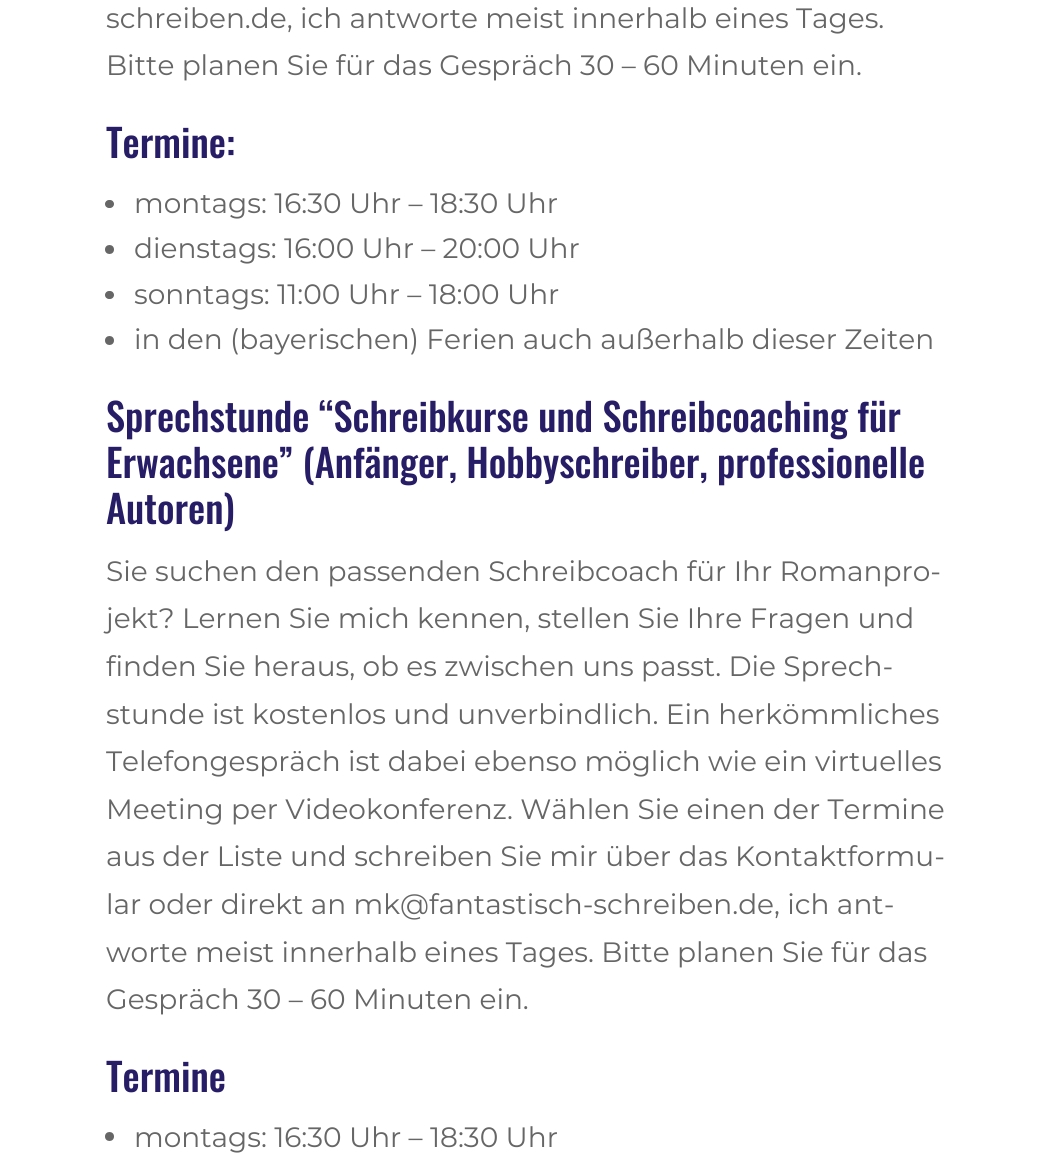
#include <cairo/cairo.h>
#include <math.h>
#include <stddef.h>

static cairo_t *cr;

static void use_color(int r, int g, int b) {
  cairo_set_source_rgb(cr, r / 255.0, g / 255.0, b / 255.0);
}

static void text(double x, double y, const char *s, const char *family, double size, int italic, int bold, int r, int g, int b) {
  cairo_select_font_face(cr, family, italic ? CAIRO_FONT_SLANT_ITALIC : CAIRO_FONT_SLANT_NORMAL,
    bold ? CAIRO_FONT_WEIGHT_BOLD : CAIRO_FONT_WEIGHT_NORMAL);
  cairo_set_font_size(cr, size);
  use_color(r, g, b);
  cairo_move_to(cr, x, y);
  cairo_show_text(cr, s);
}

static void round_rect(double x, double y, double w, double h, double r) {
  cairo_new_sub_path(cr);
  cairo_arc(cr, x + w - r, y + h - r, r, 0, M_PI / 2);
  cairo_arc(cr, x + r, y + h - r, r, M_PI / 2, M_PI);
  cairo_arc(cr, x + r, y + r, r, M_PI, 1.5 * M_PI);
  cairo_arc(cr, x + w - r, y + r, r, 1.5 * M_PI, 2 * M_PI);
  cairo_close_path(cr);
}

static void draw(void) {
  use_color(255, 255, 255);
  cairo_paint(cr);
  use_color(102, 102, 102);
  round_rect(105, 200, 9, 8, 4);
  cairo_fill(cr);
  cairo_arc(cr, 109.5, 249.5, 4.5, 0, 2 * M_PI);
  cairo_fill(cr);
  round_rect(105, 291, 9, 8, 4);
  cairo_fill(cr);
  cairo_arc(cr, 109.5, 340.5, 4.5, 0, 2 * M_PI);
  cairo_fill(cr);
  cairo_arc(cr, 109.5, 1136.5, 4.5, 0, 2 * M_PI);
  cairo_fill(cr);
  text(106, 28, "schreiben.de, ich antworte meist innerhalb eines Tages.", "Montserrat", 28, 0, 0, 102, 102, 102);
  text(106, 75, "Bitte planen Sie für das Gespräch 30 – 60 Minuten ein.", "Montserrat", 28, 0, 0, 102, 102, 102);
  text(106, 158, "Termine:", "Oswald Medium", 38.5, 0, 0, 38, 29, 102);
  text(134, 213, "montags: 16:30 Uhr – 18:30 Uhr", "Montserrat", 28, 0, 0, 102, 102, 102);
  text(134, 258, "dienstags: 16:00 Uhr – 20:00 Uhr", "Montserrat", 28, 0, 0, 102, 102, 102);
  text(134, 304, "sonntags: 11:00 Uhr – 18:00 Uhr", "Montserrat", 28, 0, 0, 102, 102, 102);
  text(134, 349, "in den (bayerischen) Ferien auch außerhalb dieser Zeiten", "Montserrat", 28, 0, 0, 102, 102, 102);
  text(106, 432, "Sprechstunde “Schreibkurse und Schreibcoaching für", "Oswald Medium", 38.5, 0, 0, 38, 29, 102);
  text(106, 478, "Erwachsene” (Anfänger, Hobbyschreiber, professionelle", "Oswald Medium", 38.5, 0, 0, 38, 29, 102);
  text(106, 524, "Autoren)", "Oswald Medium", 38.5, 0, 0, 38, 29, 102);
  text(106, 581, "Sie suchen den passenden Schreibcoach für Ihr Romanpro-", "Montserrat", 28, 0, 0, 102, 102, 102);
  text(106, 628, "jekt? Lernen Sie mich kennen, stellen Sie Ihre Fragen und", "Montserrat", 28, 0, 0, 102, 102, 102);
  text(106, 676, "finden Sie heraus, ob es zwischen uns passt. Die Sprech-", "Montserrat", 28, 0, 0, 102, 102, 102);
  text(106, 724, "stunde ist kostenlos und unverbindlich. Ein herkömmliches", "Montserrat", 28, 0, 0, 102, 102, 102);
  text(106, 771, "Telefongespräch ist dabei ebenso möglich wie ein virtuelles", "Montserrat", 28, 0, 0, 102, 102, 102);
  text(106, 819, "Meeting per Videokonferenz. Wählen Sie einen der Termine", "Montserrat", 28, 0, 0, 102, 102, 102);
  text(106, 866, "aus der Liste und schreiben Sie mir über das Kontaktformu-", "Montserrat", 28, 0, 0, 102, 102, 102);
  text(106, 914, "lar oder direkt an mk@fantastisch-schreiben.de, ich ant-", "Montserrat", 28, 0, 0, 102, 102, 102);
  text(106, 962, "worte meist innerhalb eines Tages. Bitte planen Sie für das", "Montserrat", 28, 0, 0, 102, 102, 102);
  text(106, 1009, "Gespräch 30 – 60 Minuten ein.", "Montserrat", 28, 0, 0, 102, 102, 102);
  text(106, 1092, "Termine", "Oswald Medium", 38.5, 0, 0, 38, 29, 102);
  text(134, 1147, "montags: 16:30 Uhr – 18:30 Uhr", "Montserrat", 28, 0, 0, 102, 102, 102);
}

int main(void) {
  cairo_surface_t *surface = cairo_image_surface_create(CAIRO_FORMAT_RGB24, 1061, 1155);
  cr = cairo_create(surface);
  cairo_font_options_t *options = cairo_font_options_create();
  cairo_font_options_set_hint_metrics(options, CAIRO_HINT_METRICS_OFF);
  cairo_font_options_set_hint_style(options, CAIRO_HINT_STYLE_NONE);
  cairo_set_font_options(cr, options);
  cairo_set_miter_limit(cr, 4);
  draw();
  cairo_surface_write_to_png(surface, "out.png");
  cairo_font_options_destroy(options);
  cairo_destroy(cr);
  cairo_surface_destroy(surface);
  return 0;
}
